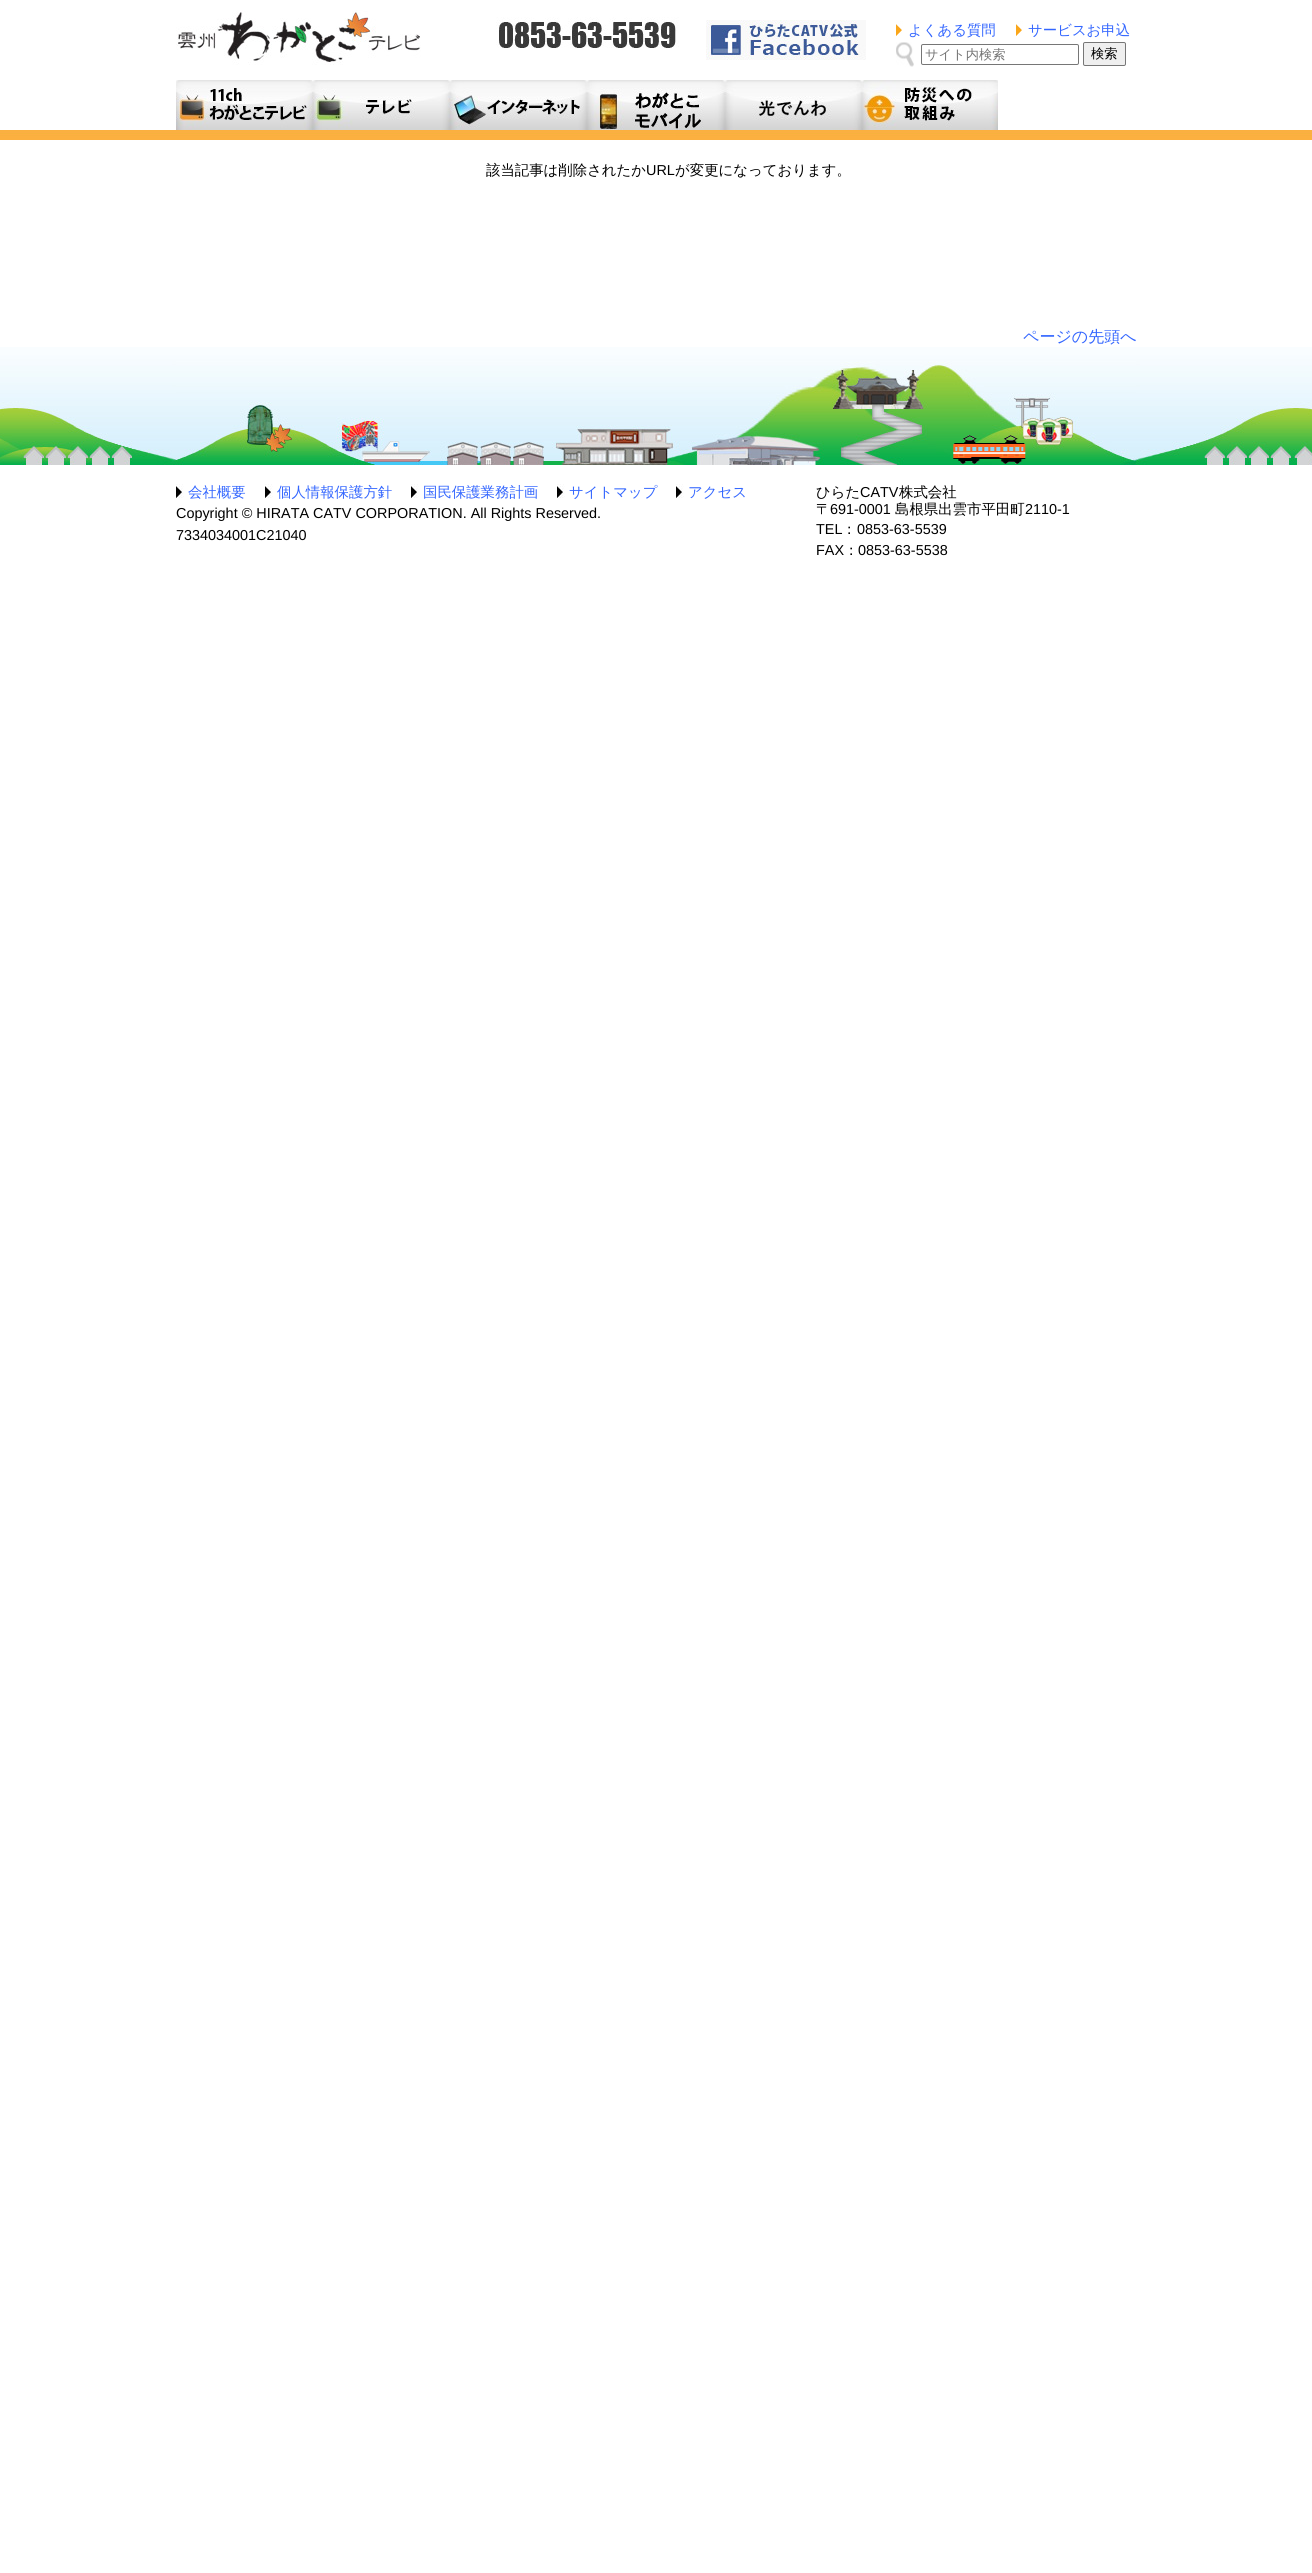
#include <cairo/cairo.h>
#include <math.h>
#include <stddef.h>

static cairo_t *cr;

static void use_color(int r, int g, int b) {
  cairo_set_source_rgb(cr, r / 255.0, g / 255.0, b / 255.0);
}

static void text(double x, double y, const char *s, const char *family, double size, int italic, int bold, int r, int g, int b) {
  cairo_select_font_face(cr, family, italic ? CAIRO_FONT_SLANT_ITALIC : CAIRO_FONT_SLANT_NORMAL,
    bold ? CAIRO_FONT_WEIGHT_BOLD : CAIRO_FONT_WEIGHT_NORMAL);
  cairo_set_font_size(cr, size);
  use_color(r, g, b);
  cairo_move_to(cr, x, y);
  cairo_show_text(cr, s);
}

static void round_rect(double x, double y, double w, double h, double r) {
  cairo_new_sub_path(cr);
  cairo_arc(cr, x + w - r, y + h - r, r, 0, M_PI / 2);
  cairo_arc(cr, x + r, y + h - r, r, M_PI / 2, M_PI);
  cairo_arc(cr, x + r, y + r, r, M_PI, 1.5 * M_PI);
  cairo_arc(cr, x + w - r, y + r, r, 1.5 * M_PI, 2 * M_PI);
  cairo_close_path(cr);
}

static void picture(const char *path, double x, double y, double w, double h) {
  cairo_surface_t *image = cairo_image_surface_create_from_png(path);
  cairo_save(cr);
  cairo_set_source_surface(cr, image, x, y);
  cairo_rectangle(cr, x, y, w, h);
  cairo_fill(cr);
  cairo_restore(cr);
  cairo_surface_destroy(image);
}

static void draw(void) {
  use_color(255, 255, 255);
  cairo_paint(cr);
  picture("img_01.png", 496, 17, 183, 31);
  picture("img_02.png", 176, 10, 245, 55);
  picture("img_03.png", 706, 20, 160, 40);
  picture("img_04.png", 896, 21, 7, 15);
  picture("img_04.png", 1016, 21, 7, 15);
  picture("img_05.png", 896, 42, 18, 25);
  round_rect(921.5, 44.5, 157, 20, 1.5);
  use_color(118, 118, 118);
  cairo_set_line_width(cr, 1);
  cairo_stroke(cr);
  use_color(239, 239, 239);
  round_rect(1083.5, 42.5, 42, 23, 1.5);
  cairo_fill_preserve(cr);
  use_color(118, 118, 118);
  cairo_stroke(cr);
  picture("img_06.png", 0, 130, 1312, 10);
  picture("img_07.png", 176, 80, 137, 50);
  picture("img_08.png", 313, 80, 137, 50);
  picture("img_09.png", 450, 80, 137, 50);
  picture("img_10.png", 587, 80, 137, 50);
  picture("img_11.png", 724, 80, 137, 50);
  picture("img_12.png", 861, 80, 137, 50);
  picture("img_13.png", 0, 347, 1312, 118);
  picture("img_14.png", 176, 361, 960, 104);
  picture("img_15.png", 953, 435, 73, 29);
  picture("img_16.png", 176, 484, 8, 14);
  picture("img_16.png", 265, 484, 8, 14);
  picture("img_16.png", 411, 484, 8, 14);
  picture("img_16.png", 557, 484, 8, 14);
  picture("img_16.png", 676, 484, 8, 14);
  text(908, 35, "よくある質問", "WenQuanYi Zen Hei Medium", 14.4, 0, 0, 51, 102, 255);
  text(1028, 35, "サービスお申込", "WenQuanYi Zen Hei Medium", 14.4, 0, 0, 51, 102, 255);
  text(925, 59, "サイト内検索", "WenQuanYi Zen Hei Medium", 13.25, 0, 0, 117, 117, 117);
  text(1091, 58, "検索", "WenQuanYi Zen Hei Medium", 13.25, 0, 0, 0, 0, 0);
  text(486, 175, "該当記事は削除されたか", "WenQuanYi Zen Hei Medium", 14.4, 0, 0, 0, 0, 0);
  text(646, 175, "URL", "Liberation Sans", 14.4, 0, 0, 0, 0, 0);
  text(675, 175, "が変更になっております。", "WenQuanYi Zen Hei Medium", 14.4, 0, 0, 0, 0, 0);
  text(1023, 342, "ページの先頭へ", "WenQuanYi Zen Hei Medium", 16, 0, 0, 51, 102, 255);
  text(188, 497, "会社概要", "WenQuanYi Zen Hei Medium", 14.4, 0, 0, 51, 102, 255);
  text(277, 497, "個人情報保護方針", "WenQuanYi Zen Hei Medium", 14.4, 0, 0, 51, 102, 255);
  text(423, 497, "国民保護業務計画", "WenQuanYi Zen Hei Medium", 14.4, 0, 0, 51, 102, 255);
  text(569, 497, "サイトマップ", "WenQuanYi Zen Hei Medium", 14.4, 0, 0, 51, 102, 255);
  text(688, 497, "アクセス", "WenQuanYi Zen Hei Medium", 14.4, 0, 0, 51, 102, 255);
  text(176, 518, "Copyright © HIRATA CATV CORPORATION. All Rights Reserved.", "Liberation Sans", 14.4, 0, 0, 0, 0, 0);
  text(176, 540, "7334034001C21040", "Liberation Sans", 14.4, 0, 0, 0, 0, 0);
  text(816, 497, "ひらた", "WenQuanYi Zen Hei Medium", 14.4, 0, 0, 0, 0, 0);
  text(860, 497, "CATV", "Liberation Sans", 14.4, 0, 0, 0, 0, 0);
  text(899, 497, "株式会社", "WenQuanYi Zen Hei Medium", 14.4, 0, 0, 0, 0, 0);
  text(816, 514, "〒", "WenQuanYi Zen Hei Medium", 14.4, 0, 0, 0, 0, 0);
  text(830, 514, "691-0001", "Liberation Sans", 14.4, 0, 0, 0, 0, 0);
  text(895, 514, "島根県出雲市平田町", "WenQuanYi Zen Hei Medium", 14.4, 0, 0, 0, 0, 0);
  text(1025, 514, "2110-1", "Liberation Sans", 14.4, 0, 0, 0, 0, 0);
  text(816, 534, "TEL", "Liberation Sans", 14.4, 0, 0, 0, 0, 0);
  text(842, 534, "：", "WenQuanYi Zen Hei Medium", 14.4, 0, 0, 0, 0, 0);
  text(857, 534, "0853-63-5539", "Liberation Sans", 14.4, 0, 0, 0, 0, 0);
  text(816, 555, "FAX", "Liberation Sans", 14.4, 0, 0, 0, 0, 0);
  text(844, 555, "：", "WenQuanYi Zen Hei Medium", 14.4, 0, 0, 0, 0, 0);
  text(858, 555, "0853-63-5538", "Liberation Sans", 14.4, 0, 0, 0, 0, 0);
}

int main(void) {
  cairo_surface_t *surface = cairo_image_surface_create(CAIRO_FORMAT_RGB24, 1312, 2573);
  cr = cairo_create(surface);
  cairo_font_options_t *options = cairo_font_options_create();
  cairo_font_options_set_hint_metrics(options, CAIRO_HINT_METRICS_OFF);
  cairo_font_options_set_hint_style(options, CAIRO_HINT_STYLE_NONE);
  cairo_set_font_options(cr, options);
  cairo_set_miter_limit(cr, 4);
  draw();
  cairo_surface_write_to_png(surface, "out.png");
  cairo_font_options_destroy(options);
  cairo_destroy(cr);
  cairo_surface_destroy(surface);
  return 0;
}
